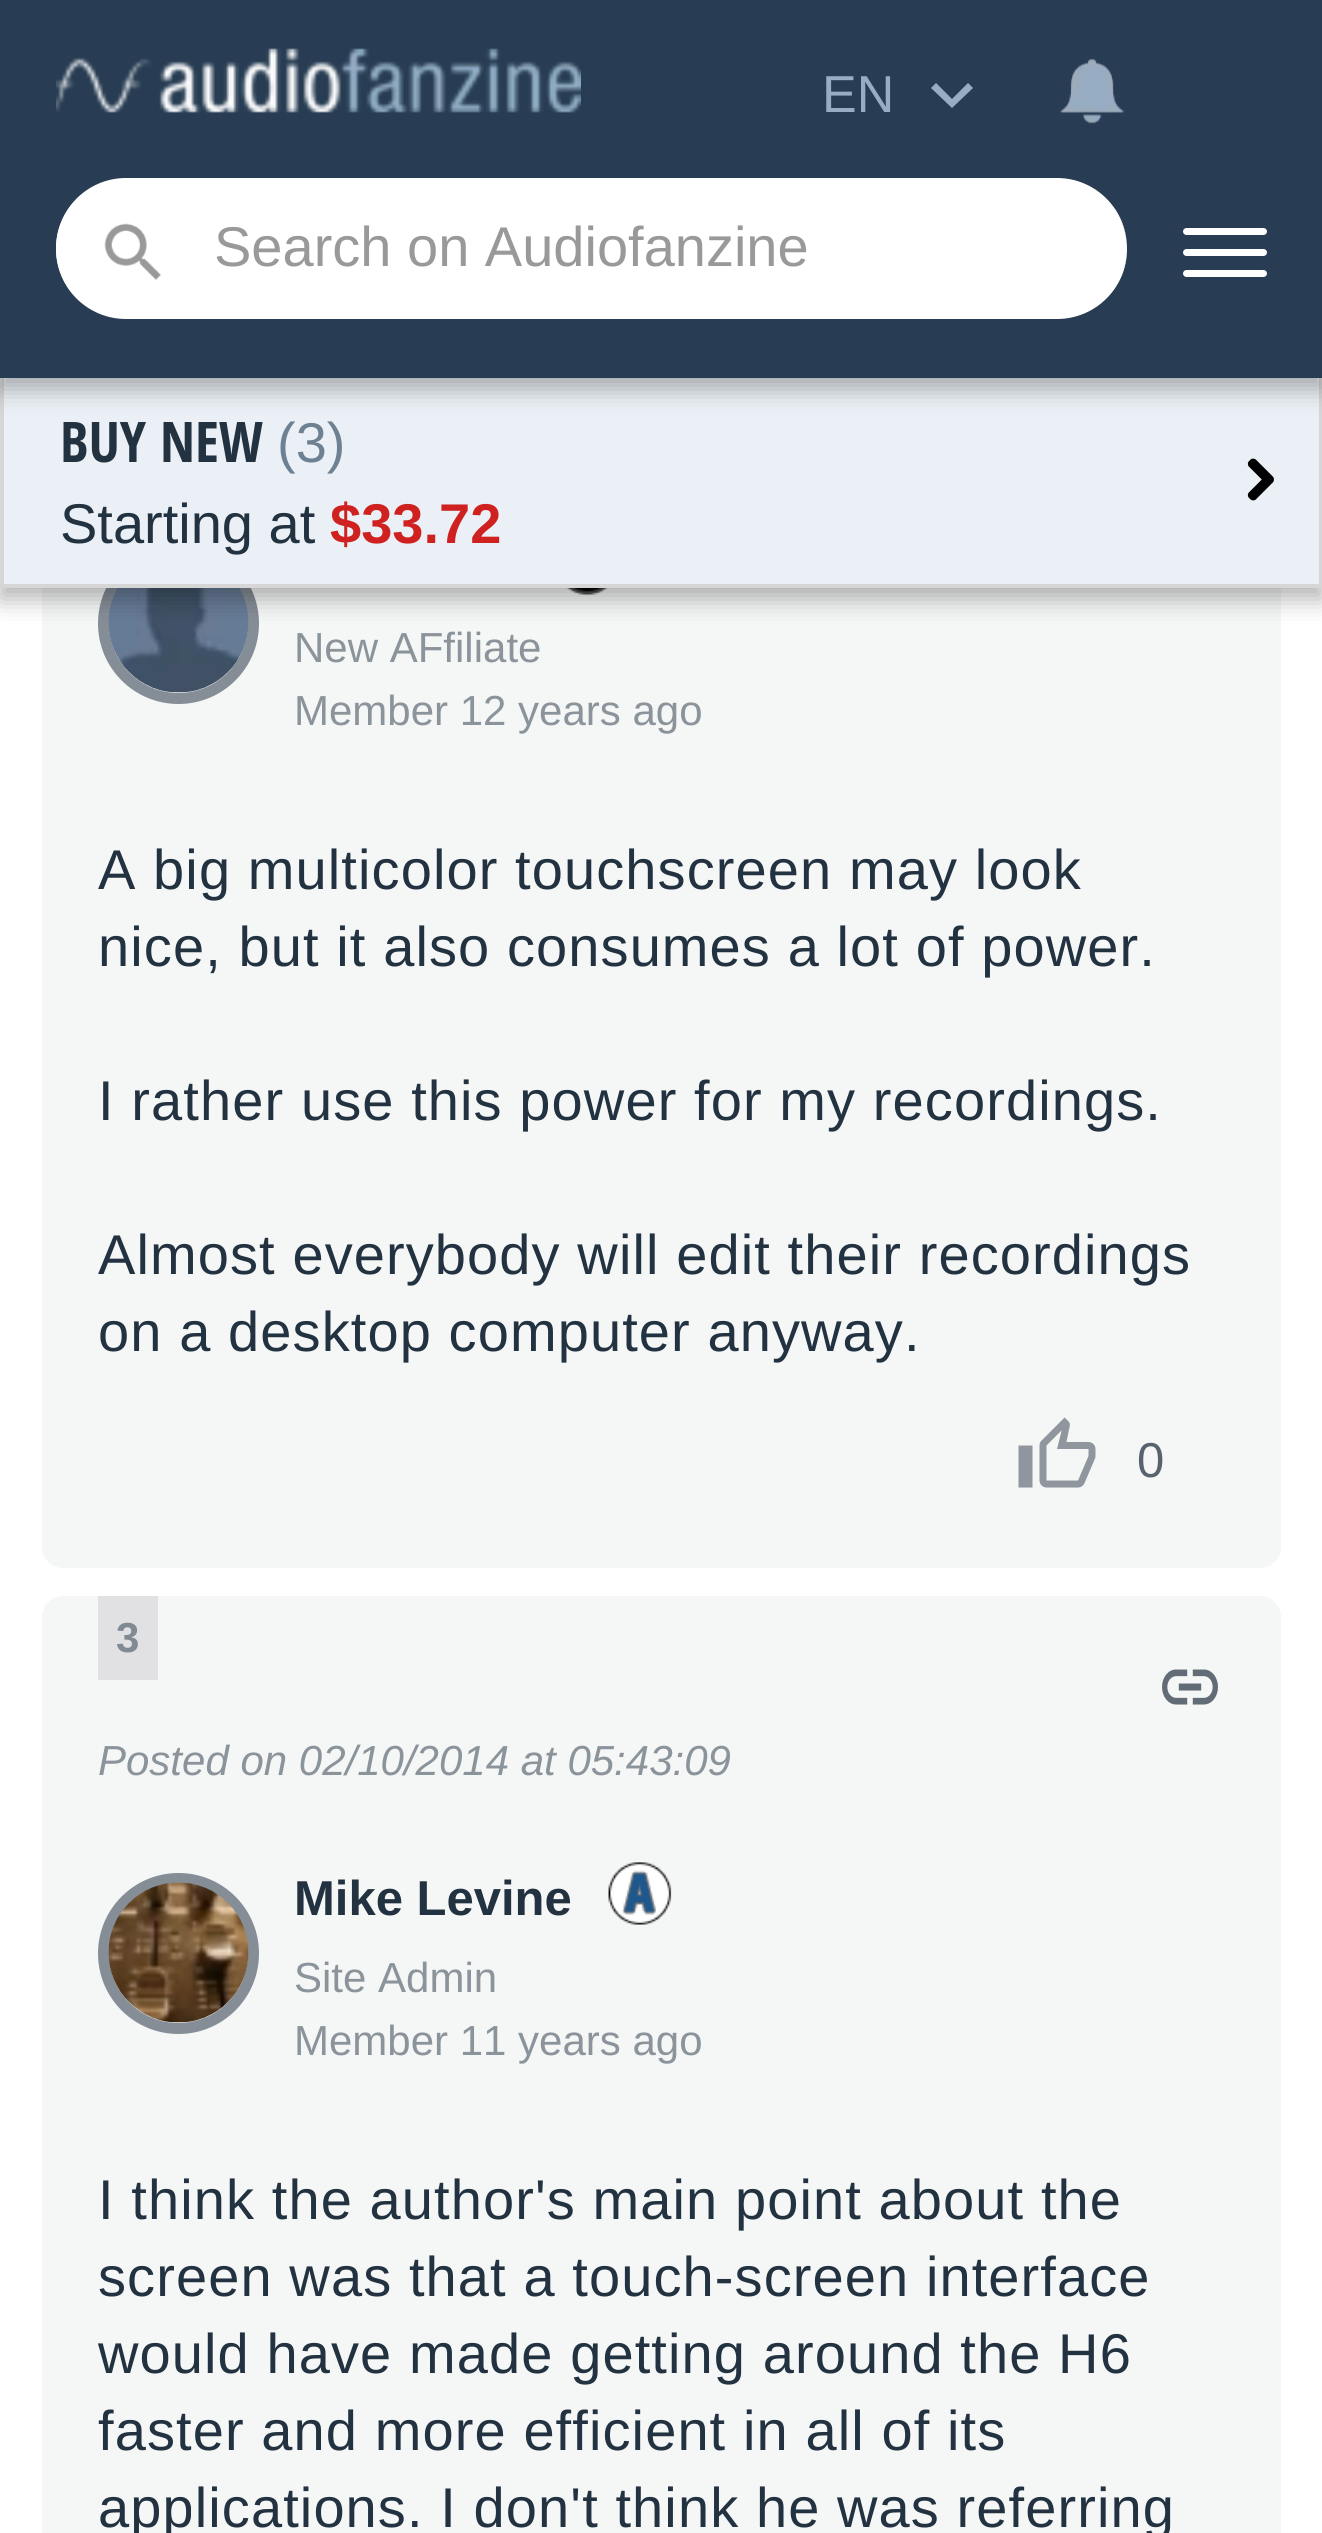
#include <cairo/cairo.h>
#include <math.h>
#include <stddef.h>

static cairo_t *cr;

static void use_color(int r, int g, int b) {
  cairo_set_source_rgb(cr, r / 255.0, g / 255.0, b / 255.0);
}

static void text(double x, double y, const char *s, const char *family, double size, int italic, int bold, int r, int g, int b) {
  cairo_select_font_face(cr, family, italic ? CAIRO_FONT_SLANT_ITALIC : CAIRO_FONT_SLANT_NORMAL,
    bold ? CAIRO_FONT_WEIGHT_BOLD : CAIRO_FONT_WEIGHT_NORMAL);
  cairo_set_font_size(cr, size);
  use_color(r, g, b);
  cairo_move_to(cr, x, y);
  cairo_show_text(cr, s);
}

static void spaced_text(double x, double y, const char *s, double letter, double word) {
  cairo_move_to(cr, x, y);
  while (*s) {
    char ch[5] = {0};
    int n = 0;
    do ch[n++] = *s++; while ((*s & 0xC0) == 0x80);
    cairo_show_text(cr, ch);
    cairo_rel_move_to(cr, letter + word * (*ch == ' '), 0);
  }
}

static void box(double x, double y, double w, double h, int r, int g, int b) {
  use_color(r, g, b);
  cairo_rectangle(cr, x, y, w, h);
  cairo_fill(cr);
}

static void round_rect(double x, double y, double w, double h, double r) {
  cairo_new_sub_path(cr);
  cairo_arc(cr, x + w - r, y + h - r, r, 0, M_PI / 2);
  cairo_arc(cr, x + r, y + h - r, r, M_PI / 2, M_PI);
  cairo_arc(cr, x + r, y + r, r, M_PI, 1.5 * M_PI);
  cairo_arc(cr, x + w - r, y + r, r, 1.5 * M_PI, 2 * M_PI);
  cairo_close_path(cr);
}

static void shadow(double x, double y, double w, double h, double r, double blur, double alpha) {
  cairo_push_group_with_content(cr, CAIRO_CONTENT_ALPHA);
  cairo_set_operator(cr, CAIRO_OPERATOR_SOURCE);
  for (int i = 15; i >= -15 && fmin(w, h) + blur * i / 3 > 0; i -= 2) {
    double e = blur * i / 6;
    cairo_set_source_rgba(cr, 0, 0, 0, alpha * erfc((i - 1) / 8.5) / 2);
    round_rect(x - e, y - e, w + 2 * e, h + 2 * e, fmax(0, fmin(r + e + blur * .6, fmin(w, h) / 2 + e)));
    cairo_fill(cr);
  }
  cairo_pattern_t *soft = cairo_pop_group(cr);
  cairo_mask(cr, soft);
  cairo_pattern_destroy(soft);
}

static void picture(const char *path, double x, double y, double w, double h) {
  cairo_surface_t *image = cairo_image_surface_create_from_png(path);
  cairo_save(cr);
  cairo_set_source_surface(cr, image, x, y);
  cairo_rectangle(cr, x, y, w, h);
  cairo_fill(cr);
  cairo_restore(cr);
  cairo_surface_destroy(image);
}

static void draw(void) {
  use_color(255, 255, 255);
  cairo_paint(cr);
  use_color(245, 246, 246);
  round_rect(42, 266, 1239, 1302, 21);
  cairo_fill(cr);
  cairo_arc(cr, 178.5, 623.5, 75, 0, 2 * M_PI);
  use_color(133, 141, 150);
  cairo_set_line_width(cr, 11);
  cairo_stroke(cr);
  picture("img_05.png", 108, 588, 141, 105);
  picture("img_06.png", 566, 588, 42, 7);
  use_color(0, 0, 0);
  shadow(0, 382, 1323, 217, 0, 12, 0.3);
  box(4, 378, 1315, 206, 234, 240, 245);
  cairo_rectangle(cr, 2, 373, 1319, 213);
  use_color(214, 214, 214);
  cairo_set_line_width(cr, 4);
  cairo_stroke(cr);
  use_color(0, 0, 0);
  shadow(0, 11, 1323, 378, 0, 12, 0.3);
  box(0, 0, 1322, 378, 40, 61, 83);
  picture("img_01.png", 56, 48, 525, 65);
  picture("img_02.png", 1060, 58, 64, 66);
  use_color(151, 173, 196);
  cairo_new_path(cr);
  cairo_move_to(cr, 968, 83);
  cairo_line_to(cr, 952, 99);
  cairo_line_to(cr, 936, 83);
  cairo_line_to(cr, 931, 88);
  cairo_line_to(cr, 952, 108);
  cairo_line_to(cr, 973, 88);
  cairo_close_path(cr);
  cairo_fill(cr);
  use_color(255, 255, 255);
  round_rect(56, 179, 1071, 140, 70);
  cairo_fill(cr);
  cairo_set_fill_rule(cr, CAIRO_FILL_RULE_EVEN_ODD);
  cairo_new_path(cr);
  cairo_move_to(cr, 126, 178);
  cairo_line_to(cr, 1057, 178);
  cairo_curve_to(cr, 1096, 178, 1127, 210, 1127, 248);
  cairo_curve_to(cr, 1127, 287, 1096, 318, 1057, 318);
  cairo_line_to(cr, 126, 318);
  cairo_curve_to(cr, 87, 318, 56, 287, 56, 248);
  cairo_curve_to(cr, 56, 210, 87, 178, 126, 178);
  cairo_close_path(cr);
  cairo_move_to(cr, 126, 182);
  cairo_line_to(cr, 1057, 182);
  cairo_curve_to(cr, 1096, 182, 1127, 212, 1127, 248);
  cairo_curve_to(cr, 1127, 285, 1096, 315, 1057, 315);
  cairo_line_to(cr, 126, 315);
  cairo_curve_to(cr, 89, 315, 60, 285, 60, 248);
  cairo_curve_to(cr, 60, 212, 89, 182, 126, 182);
  cairo_close_path(cr);
  cairo_fill(cr);
  picture("img_03.png", 104, 223, 57, 57);
  round_rect(1183, 270, 84, 7, 3.5);
  cairo_fill(cr);
  round_rect(1183, 228, 84, 7, 3.5);
  cairo_fill(cr);
  round_rect(1183, 249, 84, 7, 3.5);
  cairo_fill(cr);
  picture("img_04.png", 1247, 458, 27, 43);
  picture("img_07.png", 1018, 1417, 78, 71);
  use_color(245, 246, 246);
  round_rect(42, 1596, 1239, 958, 21);
  cairo_fill(cr);
  box(98, 1596, 60, 84, 225, 225, 227);
  picture("img_08.png", 1162, 1669, 56, 36);
  cairo_arc(cr, 178.5, 1953.5, 75, 0, 2 * M_PI);
  use_color(133, 141, 150);
  cairo_set_line_width(cr, 11);
  cairo_stroke(cr);
  picture("img_09.png", 108, 1882, 141, 141);
  picture("img_10.png", 608, 1862, 64, 63);
  text(822, 112, "EN", "Liberation Sans", 52, 0, 0, 151, 173, 196);
  text(214, 266, "Search on Audiofanzine", "Liberation Sans", 56, 0, 0, 153, 153, 153);
  text(60, 462, "BUY NEW", "Open Sans Condensed", 56, 0, 1, 34, 50, 64);
  text(277, 462, "(3)", "Liberation Sans", 56, 0, 0, 109, 129, 147);
  text(60, 543, "Starting at", "Liberation Sans", 56, 0, 0, 34, 50, 64);
  text(330, 543, "$33.72", "Liberation Sans", 56, 0, 1, 208, 33, 33);
  text(294, 662, "New AFfiliate", "Liberation Sans", 42, 0, 0, 139, 148, 155);
  text(294, 725, "Member 12 years ago", "Liberation Sans", 42, 0, 0, 139, 148, 155);
  cairo_set_font_size(cr, 56);
  use_color(34, 50, 64);
  spaced_text(98, 889, "A big multicolor touchscreen may look", 1.1, 0);
  spaced_text(98, 966, "nice, but it also consumes a lot of power.", 1.1, 0);
  spaced_text(98, 1120, "I rather use this power for my recordings.", 1.1, 0);
  spaced_text(98, 1274, "Almost everybody will edit their recordings", 1.1, 0);
  spaced_text(98, 1351, "on a desktop computer anyway.", 1.1, 0);
  cairo_set_font_size(cr, 49);
  use_color(88, 99, 109);
  spaced_text(1137, 1477, "0", 1.1, 0);
  text(116, 1652, "3", "Liberation Sans", 42, 0, 1, 129, 137, 146);
  text(98, 1775, "Posted on 02/10/2014 at 05:43:09", "Liberation Sans", 42, 1, 0, 139, 148, 155);
  text(294, 1915, "Mike Levine", "Liberation Sans", 49, 0, 1, 34, 50, 64);
  text(294, 1992, "Site Admin", "Liberation Sans", 42, 0, 0, 139, 148, 155);
  text(294, 2055, "Member 11 years ago", "Liberation Sans", 42, 0, 0, 139, 148, 155);
  cairo_set_font_size(cr, 56);
  use_color(34, 50, 64);
  spaced_text(98, 2219, "I think the author's main point about the", 1.1, 0);
  spaced_text(98, 2296, "screen was that a touch-screen interface", 1.1, 0);
  spaced_text(98, 2373, "would have made getting around the H6", 1.1, 0);
  spaced_text(98, 2450, "faster and more efficient in all of its", 1.1, 0);
  spaced_text(98, 2527, "applications. I don't think he was referring", 1.1, 0);
}

int main(void) {
  cairo_surface_t *surface = cairo_image_surface_create(CAIRO_FORMAT_RGB24, 1322, 2533);
  cr = cairo_create(surface);
  cairo_font_options_t *options = cairo_font_options_create();
  cairo_font_options_set_hint_metrics(options, CAIRO_HINT_METRICS_OFF);
  cairo_font_options_set_hint_style(options, CAIRO_HINT_STYLE_NONE);
  cairo_set_font_options(cr, options);
  cairo_set_miter_limit(cr, 4);
  draw();
  cairo_surface_write_to_png(surface, "out.png");
  cairo_font_options_destroy(options);
  cairo_destroy(cr);
  cairo_surface_destroy(surface);
  return 0;
}
